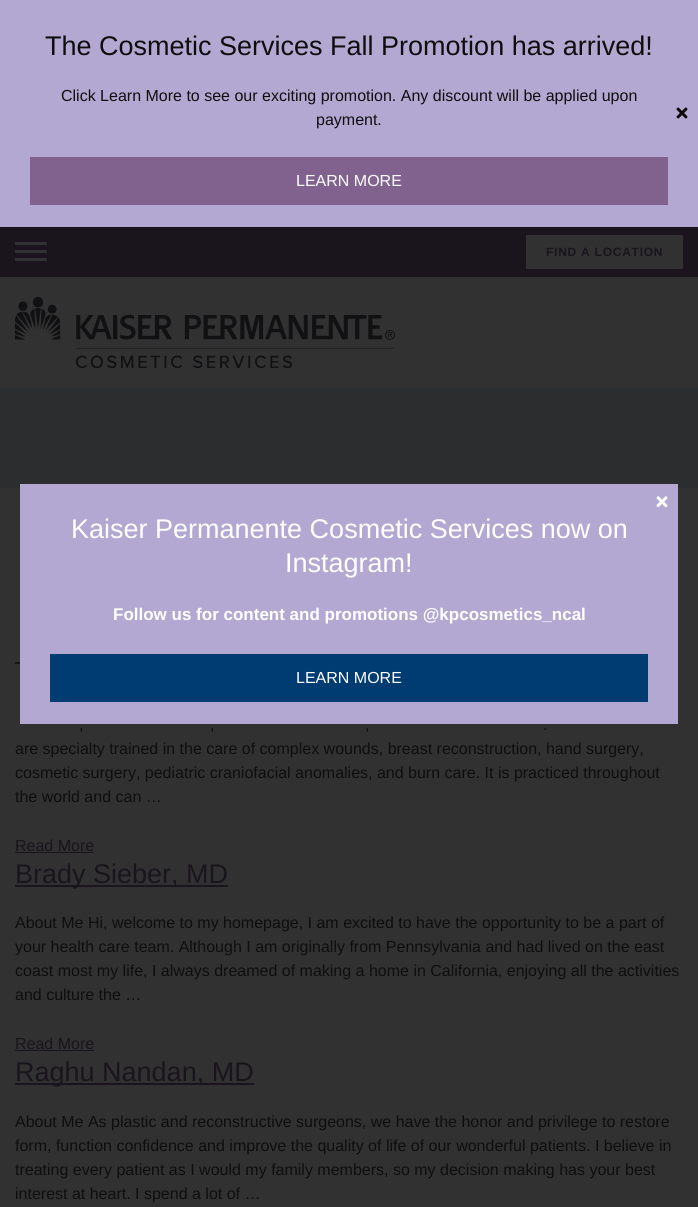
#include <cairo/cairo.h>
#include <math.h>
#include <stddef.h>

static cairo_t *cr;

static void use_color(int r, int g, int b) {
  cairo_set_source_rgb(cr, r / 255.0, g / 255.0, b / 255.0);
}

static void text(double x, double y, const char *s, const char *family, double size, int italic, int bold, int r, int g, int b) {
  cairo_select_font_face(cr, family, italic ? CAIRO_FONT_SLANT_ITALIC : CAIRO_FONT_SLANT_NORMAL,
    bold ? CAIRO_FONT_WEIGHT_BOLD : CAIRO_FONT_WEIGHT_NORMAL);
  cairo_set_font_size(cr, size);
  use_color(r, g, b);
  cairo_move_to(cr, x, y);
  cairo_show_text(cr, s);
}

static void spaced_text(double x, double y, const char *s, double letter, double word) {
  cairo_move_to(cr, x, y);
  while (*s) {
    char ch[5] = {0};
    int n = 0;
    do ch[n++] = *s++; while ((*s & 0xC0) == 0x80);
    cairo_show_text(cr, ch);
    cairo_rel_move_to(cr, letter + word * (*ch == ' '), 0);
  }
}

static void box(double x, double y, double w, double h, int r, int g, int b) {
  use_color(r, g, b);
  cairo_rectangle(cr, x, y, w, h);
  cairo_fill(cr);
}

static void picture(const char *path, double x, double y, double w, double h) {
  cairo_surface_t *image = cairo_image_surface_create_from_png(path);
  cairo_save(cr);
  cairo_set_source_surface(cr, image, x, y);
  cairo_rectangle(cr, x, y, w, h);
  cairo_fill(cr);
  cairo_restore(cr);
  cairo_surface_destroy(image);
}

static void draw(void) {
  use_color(49, 49, 49);
  cairo_paint(cr);
  box(0, 0, 698, 227, 178, 168, 210);
  box(30, 157, 638, 48, 129, 98, 143);
  picture("img_01.png", 676, 107, 12, 12);
  box(0, 227, 698, 50, 26, 20, 28);
  box(15, 250, 32, 3, 49, 49, 49);
  box(15, 242, 32, 3, 49, 49, 49);
  box(15, 258, 32, 3, 49, 49, 49);
  box(526, 235, 157, 34, 49, 49, 49);
  box(0, 388, 698, 100, 44, 45, 47);
  picture("img_02.png", 15, 297, 380, 71);
  box(20, 484, 658, 240, 178, 168, 210);
  picture("img_03.png", 656, 496, 12, 12);
  box(50, 654, 598, 48, 0, 59, 113);
  box(15, 662, 5, 2, 26, 20, 28);
  box(15, 852, 79, 1, 26, 20, 28);
  box(15, 885, 213, 2, 26, 20, 28);
  box(15, 1050, 79, 1, 26, 20, 28);
  box(15, 1083, 239, 2, 26, 20, 28);
  text(45, 55, "The Cosmetic Services Fall Promotion has arrived!", "Liberation Sans", 27, 0, 0, 14, 14, 14);
  text(61, 101, "Click Learn More to see our exciting promotion. Any discount will be applied upon", "Liberation Sans", 16, 0, 0, 14, 14, 14);
  text(316, 125, "payment.", "Liberation Sans", 16, 0, 0, 14, 14, 14);
  text(296, 186, "LEARN MORE", "Liberation Sans", 16, 0, 0, 255, 255, 255);
  cairo_select_font_face(cr, "Liberation Sans", CAIRO_FONT_SLANT_NORMAL, CAIRO_FONT_WEIGHT_BOLD);
  cairo_set_font_size(cr, 12);
  use_color(26, 20, 28);
  spaced_text(546, 256, "FIND A LOCATION", 0.75, 0);
  text(71, 538, "Kaiser Permanente Cosmetic Services now on", "Liberation Sans", 27, 0, 0, 255, 255, 255);
  text(285, 572, "Instagram!", "Liberation Sans", 27, 0, 0, 255, 255, 255);
  text(113, 620, "Follow us for content and promotions @kpcosmetics_ncal", "Liberation Sans", 17, 0, 1, 255, 255, 255);
  text(296, 683, "LEARN MORE", "Liberation Sans", 16, 0, 0, 255, 255, 255);
  text(79, 730, ",", "Liberation Sans", 16, 0, 0, 14, 14, 14);
  text(210, 730, ",", "Liberation Sans", 16, 0, 0, 14, 14, 14);
  text(365, 730, ",", "Liberation Sans", 16, 0, 0, 14, 14, 14);
  text(543, 730, ".", "Liberation Sans", 16, 0, 0, 14, 14, 14);
  text(15, 754, "are specialty trained in the care of complex wounds, breast reconstruction, hand surgery,", "Liberation Sans", 16, 0, 0, 14, 14, 14);
  text(15, 778, "cosmetic surgery, pediatric craniofacial anomalies, and burn care. It is practiced throughout", "Liberation Sans", 16, 0, 0, 14, 14, 14);
  text(15, 802, "the world and can …", "Liberation Sans", 16, 0, 0, 14, 14, 14);
  text(15, 851, "Read More", "Liberation Sans", 16, 0, 0, 26, 20, 28);
  text(15, 883, "Brady Sieber, MD", "Liberation Sans", 27, 0, 0, 26, 20, 28);
  text(15, 928, "About Me Hi, welcome to my homepage, I am excited to have the opportunity to be a part of", "Liberation Sans", 16, 0, 0, 14, 14, 14);
  text(15, 952, "your health care team. Although I am originally from Pennsylvania and had lived on the east", "Liberation Sans", 16, 0, 0, 14, 14, 14);
  text(15, 976, "coast most my life, I always dreamed of making a home in California, enjoying all the activities", "Liberation Sans", 16, 0, 0, 14, 14, 14);
  text(15, 1000, "and culture the …", "Liberation Sans", 16, 0, 0, 14, 14, 14);
  text(15, 1049, "Read More", "Liberation Sans", 16, 0, 0, 26, 20, 28);
  text(15, 1081, "Raghu Nandan, MD", "Liberation Sans", 27, 0, 0, 26, 20, 28);
  text(15, 1127, "About Me As plastic and reconstructive surgeons, we have the honor and privilege to restore", "Liberation Sans", 16, 0, 0, 14, 14, 14);
  text(15, 1151, "form, function confidence and improve the quality of life of our wonderful patients. I believe in", "Liberation Sans", 16, 0, 0, 14, 14, 14);
  text(15, 1175, "treating every patient as I would my family members, so my decision making has your best", "Liberation Sans", 16, 0, 0, 14, 14, 14);
  text(15, 1199, "interest at heart. I spend a lot of …", "Liberation Sans", 16, 0, 0, 14, 14, 14);
}

int main(void) {
  cairo_surface_t *surface = cairo_image_surface_create(CAIRO_FORMAT_RGB24, 698, 1207);
  cr = cairo_create(surface);
  cairo_font_options_t *options = cairo_font_options_create();
  cairo_font_options_set_hint_metrics(options, CAIRO_HINT_METRICS_OFF);
  cairo_font_options_set_hint_style(options, CAIRO_HINT_STYLE_NONE);
  cairo_set_font_options(cr, options);
  cairo_set_miter_limit(cr, 4);
  draw();
  cairo_surface_write_to_png(surface, "out.png");
  cairo_font_options_destroy(options);
  cairo_destroy(cr);
  cairo_surface_destroy(surface);
  return 0;
}
